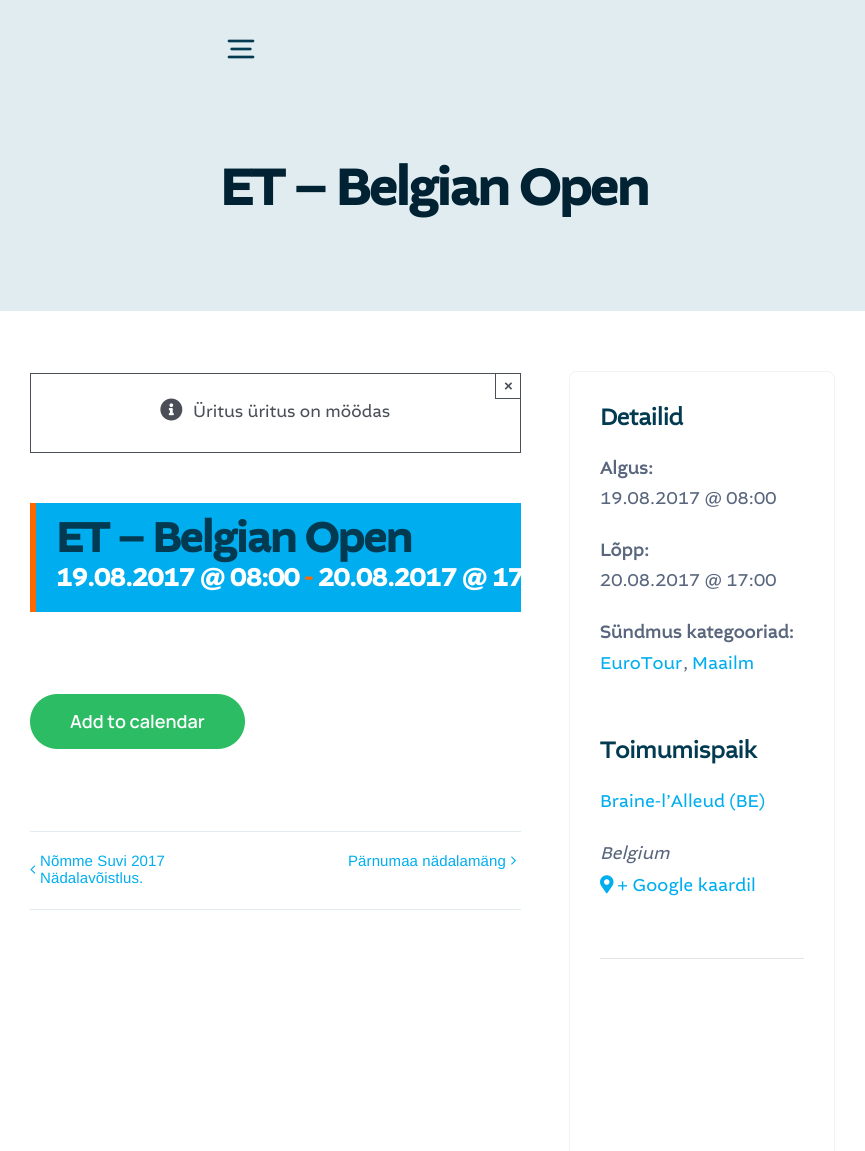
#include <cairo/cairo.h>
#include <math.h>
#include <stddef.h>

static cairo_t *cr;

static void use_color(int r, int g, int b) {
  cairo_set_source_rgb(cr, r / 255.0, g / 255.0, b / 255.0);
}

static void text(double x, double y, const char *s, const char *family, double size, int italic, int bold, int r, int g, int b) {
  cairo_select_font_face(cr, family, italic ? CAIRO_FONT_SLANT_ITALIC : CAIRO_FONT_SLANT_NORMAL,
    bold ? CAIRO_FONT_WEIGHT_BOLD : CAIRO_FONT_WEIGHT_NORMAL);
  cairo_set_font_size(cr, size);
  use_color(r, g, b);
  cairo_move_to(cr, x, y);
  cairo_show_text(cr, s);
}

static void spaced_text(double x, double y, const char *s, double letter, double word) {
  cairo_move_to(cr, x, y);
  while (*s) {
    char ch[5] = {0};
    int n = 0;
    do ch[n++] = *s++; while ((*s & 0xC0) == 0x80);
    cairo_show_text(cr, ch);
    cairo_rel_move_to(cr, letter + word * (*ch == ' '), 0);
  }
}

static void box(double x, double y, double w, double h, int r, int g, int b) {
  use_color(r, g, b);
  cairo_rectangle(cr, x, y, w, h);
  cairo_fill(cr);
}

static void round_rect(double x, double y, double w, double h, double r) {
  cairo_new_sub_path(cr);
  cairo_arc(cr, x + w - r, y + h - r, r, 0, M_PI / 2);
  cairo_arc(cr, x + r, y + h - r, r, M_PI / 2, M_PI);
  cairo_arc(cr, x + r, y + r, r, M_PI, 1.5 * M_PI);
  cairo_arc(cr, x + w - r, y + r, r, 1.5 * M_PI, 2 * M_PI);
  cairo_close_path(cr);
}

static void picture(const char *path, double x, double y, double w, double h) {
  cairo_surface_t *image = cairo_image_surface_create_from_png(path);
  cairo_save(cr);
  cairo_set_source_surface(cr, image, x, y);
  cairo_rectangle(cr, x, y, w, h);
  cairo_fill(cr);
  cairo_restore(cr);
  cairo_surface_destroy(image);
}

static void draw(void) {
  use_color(255, 255, 255);
  cairo_paint(cr);
  box(0, 0, 865, 311, 224, 236, 240);
  picture("img_01.png", 227, 39, 28, 20);
  cairo_rectangle(cr, 30.5, 373.5, 490, 79);
  use_color(74, 78, 87);
  cairo_set_line_width(cr, 1);
  cairo_stroke(cr);
  box(495, 398, 26, 1, 74, 78, 87);
  box(495, 373, 1, 26, 74, 78, 87);
  picture("img_02.png", 160, 398, 23, 23);
  box(36, 503, 485, 109, 0, 174, 239);
  box(30, 503, 6, 109, 255, 103, 1);
  use_color(44, 188, 99);
  round_rect(30, 694, 215, 55, 27.5);
  cairo_fill(cr);
  box(30, 831, 491, 1, 224, 236, 240);
  box(30, 909, 491, 1, 224, 236, 240);
  picture("img_03.png", 30, 865, 6, 9);
  picture("img_04.png", 511, 856, 5, 9);
  round_rect(569.5, 371.5, 265, 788, 7.5);
  use_color(242, 243, 245);
  cairo_stroke(cr);
  picture("img_05.png", 600, 875, 14, 19);
  box(600, 958, 204, 1, 228, 228, 228);
  cairo_select_font_face(cr, "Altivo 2", CAIRO_FONT_SLANT_NORMAL, CAIRO_FONT_WEIGHT_BOLD);
  cairo_set_font_size(cr, 53);
  use_color(0, 34, 51);
  spaced_text(220, 205, "ET – Belgian Open", -1.9, 0);
  text(504, 391, "×", "Liberation Sans", 15, 0, 1, 74, 78, 87);
  cairo_select_font_face(cr, "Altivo", CAIRO_FONT_SLANT_NORMAL, CAIRO_FONT_WEIGHT_NORMAL);
  cairo_set_font_size(cr, 17);
  spaced_text(193, 417, "Üritus üritus on möödas", 0.1, 0);
  cairo_select_font_face(cr, "Altivo 2", CAIRO_FONT_SLANT_NORMAL, CAIRO_FONT_WEIGHT_BOLD);
  cairo_set_font_size(cr, 43.5);
  use_color(2, 58, 81);
  spaced_text(56, 552, "ET – Belgian Open", -1.3, 0);
  cairo_set_font_size(cr, 26);
  use_color(255, 255, 255);
  spaced_text(56, 586, "19.08.2017 @ 08:00", -0.5, 0);
  use_color(255, 103, 1);
  spaced_text(304, 586, "-", -0.5, 0);
  use_color(255, 255, 255);
  spaced_text(318, 586, "20.08.2017 @ 17", -0.5, 0);
  text(70, 728, "Add to calendar", "Manrope SemiBold", 18, 0, 0, 255, 255, 255);
  cairo_select_font_face(cr, "Liberation Sans", CAIRO_FONT_SLANT_NORMAL, CAIRO_FONT_WEIGHT_NORMAL);
  cairo_set_font_size(cr, 15);
  use_color(0, 174, 239);
  spaced_text(40, 866, "Nõmme Suvi 2017", 0.1, 0);
  spaced_text(40, 883, "Nädalavõistlus.", 0.1, 0);
  spaced_text(348, 866, "Pärnumaa nädalamäng", 0.1, 0);
  cairo_select_font_face(cr, "Altivo", CAIRO_FONT_SLANT_NORMAL, CAIRO_FONT_WEIGHT_BOLD);
  cairo_set_font_size(cr, 24);
  use_color(2, 58, 81);
  spaced_text(600, 425, "Detailid", -0.4, 0);
  cairo_set_font_size(cr, 18);
  use_color(89, 102, 125);
  spaced_text(600, 474, "Algus:", 0.1, 0);
  cairo_select_font_face(cr, "Altivo", CAIRO_FONT_SLANT_NORMAL, CAIRO_FONT_WEIGHT_NORMAL);
  spaced_text(600, 504, "19.08.2017 @ 08:00", 0.1, 0);
  cairo_select_font_face(cr, "Altivo", CAIRO_FONT_SLANT_NORMAL, CAIRO_FONT_WEIGHT_BOLD);
  spaced_text(600, 556, "Lõpp:", 0.1, 0);
  cairo_select_font_face(cr, "Altivo", CAIRO_FONT_SLANT_NORMAL, CAIRO_FONT_WEIGHT_NORMAL);
  spaced_text(600, 586, "20.08.2017 @ 17:00", 0.1, 0);
  cairo_select_font_face(cr, "Altivo", CAIRO_FONT_SLANT_NORMAL, CAIRO_FONT_WEIGHT_BOLD);
  spaced_text(600, 638, "Sündmus kategooriad:", 0.1, 0);
  cairo_select_font_face(cr, "Altivo", CAIRO_FONT_SLANT_NORMAL, CAIRO_FONT_WEIGHT_NORMAL);
  use_color(0, 174, 239);
  spaced_text(600, 669, "EuroTour", 0.1, 0);
  use_color(89, 102, 125);
  spaced_text(683, 669, ",", 0.1, 0);
  use_color(0, 174, 239);
  spaced_text(692, 669, "Maailm", 0.1, 0);
  cairo_select_font_face(cr, "Altivo", CAIRO_FONT_SLANT_NORMAL, CAIRO_FONT_WEIGHT_BOLD);
  cairo_set_font_size(cr, 24);
  use_color(2, 58, 81);
  spaced_text(600, 758, "Toimumispaik", -0.4, 0);
  cairo_select_font_face(cr, "Altivo", CAIRO_FONT_SLANT_NORMAL, CAIRO_FONT_WEIGHT_NORMAL);
  cairo_set_font_size(cr, 18);
  use_color(0, 174, 239);
  spaced_text(600, 807, "Braine-l’Alleud (BE)", 0.1, 0);
  cairo_select_font_face(cr, "Altivo", CAIRO_FONT_SLANT_ITALIC, CAIRO_FONT_WEIGHT_NORMAL);
  use_color(89, 102, 125);
  spaced_text(600, 859, "Belgium", 0.1, 0);
  cairo_select_font_face(cr, "Altivo", CAIRO_FONT_SLANT_NORMAL, CAIRO_FONT_WEIGHT_NORMAL);
  use_color(0, 174, 239);
  spaced_text(617, 891, "+ Google kaardil", 0.1, 0);
}

int main(void) {
  cairo_surface_t *surface = cairo_image_surface_create(CAIRO_FORMAT_RGB24, 865, 1151);
  cr = cairo_create(surface);
  cairo_font_options_t *options = cairo_font_options_create();
  cairo_font_options_set_hint_metrics(options, CAIRO_HINT_METRICS_OFF);
  cairo_font_options_set_hint_style(options, CAIRO_HINT_STYLE_NONE);
  cairo_set_font_options(cr, options);
  cairo_set_miter_limit(cr, 4);
  draw();
  cairo_surface_write_to_png(surface, "out.png");
  cairo_font_options_destroy(options);
  cairo_destroy(cr);
  cairo_surface_destroy(surface);
  return 0;
}
